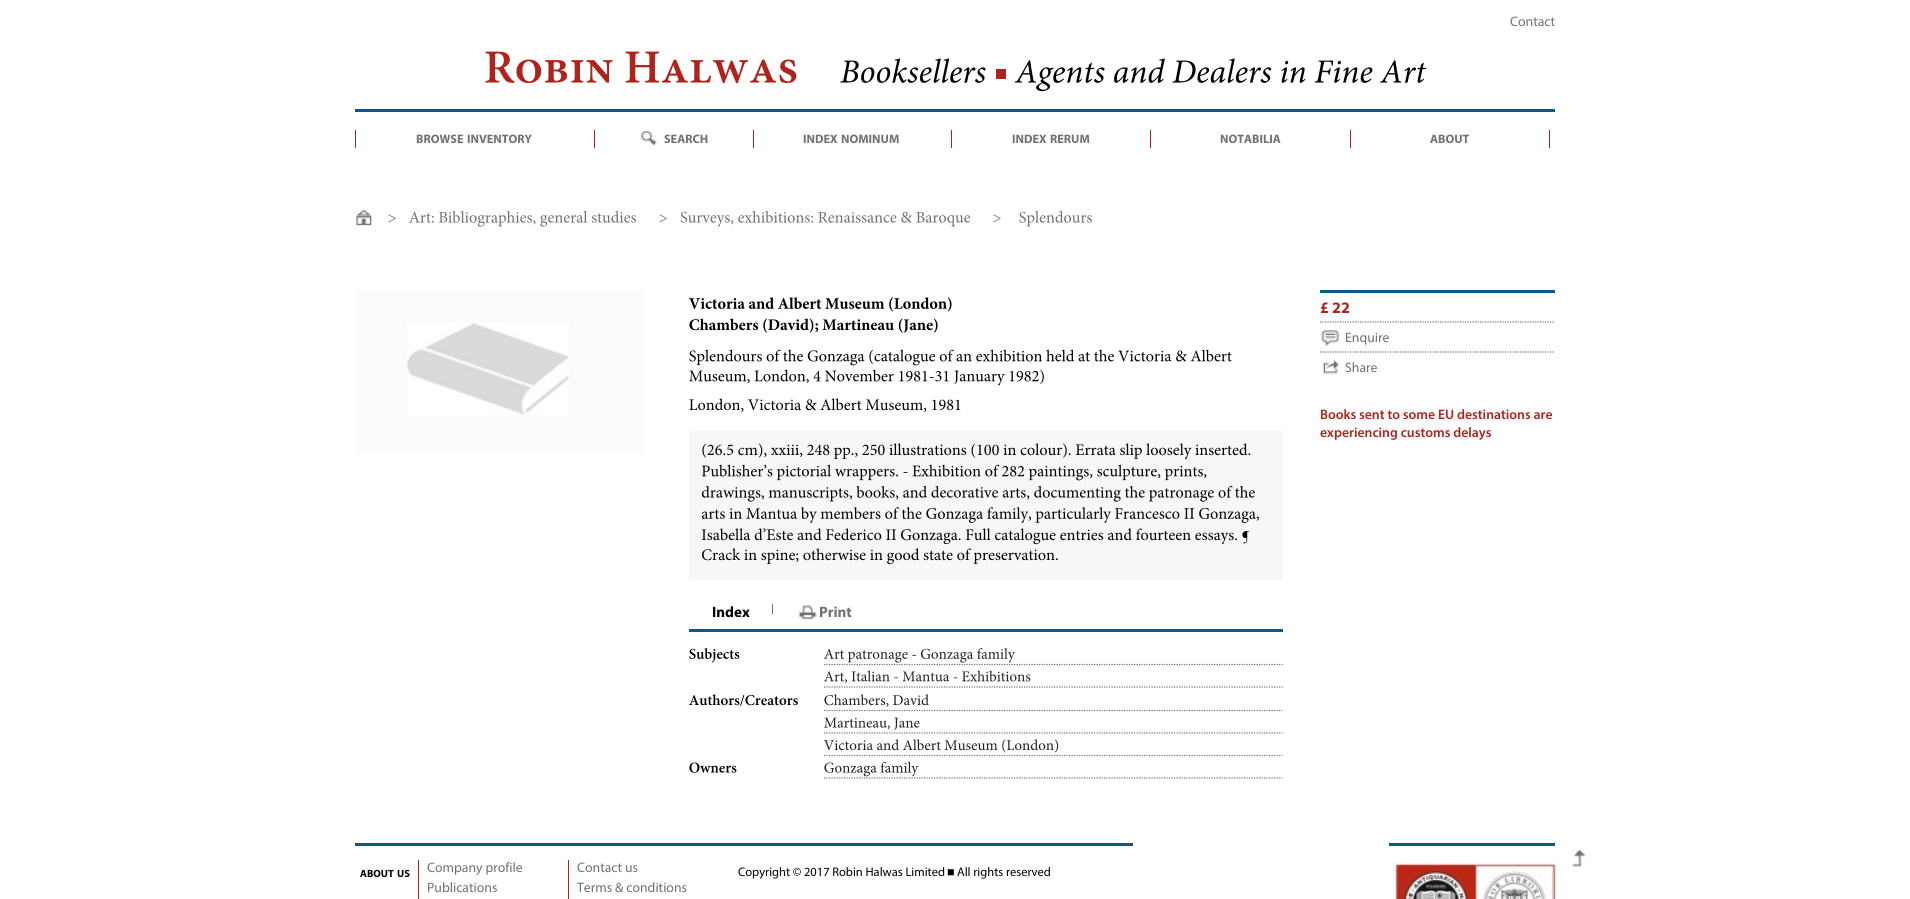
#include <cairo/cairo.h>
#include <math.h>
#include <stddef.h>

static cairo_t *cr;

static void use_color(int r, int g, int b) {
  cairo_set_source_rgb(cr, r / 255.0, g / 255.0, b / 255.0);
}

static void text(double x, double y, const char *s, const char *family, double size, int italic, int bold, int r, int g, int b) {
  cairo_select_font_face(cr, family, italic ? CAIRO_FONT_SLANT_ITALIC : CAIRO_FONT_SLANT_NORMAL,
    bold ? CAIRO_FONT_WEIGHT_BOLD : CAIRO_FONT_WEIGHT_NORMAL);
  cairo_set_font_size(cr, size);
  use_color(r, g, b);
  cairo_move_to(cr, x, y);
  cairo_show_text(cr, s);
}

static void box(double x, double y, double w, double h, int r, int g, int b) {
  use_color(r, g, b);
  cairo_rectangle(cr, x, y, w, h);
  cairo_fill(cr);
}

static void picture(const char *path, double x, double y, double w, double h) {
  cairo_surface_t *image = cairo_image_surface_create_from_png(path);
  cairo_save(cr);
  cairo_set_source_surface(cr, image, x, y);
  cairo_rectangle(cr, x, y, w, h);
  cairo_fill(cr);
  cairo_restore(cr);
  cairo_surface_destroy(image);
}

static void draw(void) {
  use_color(255, 255, 255);
  cairo_paint(cr);
  box(355, 109, 1200, 3, 5, 91, 132);
  picture("img_01.png", 485, 51, 312, 33);
  picture("img_02.png", 840, 58, 146, 25);
  box(996, 69, 10, 10, 175, 35, 28);
  picture("img_03.png", 1014, 58, 413, 34);
  box(594, 130, 1, 18, 175, 35, 28);
  box(355, 130, 1, 18, 175, 35, 28);
  box(753, 130, 1, 18, 175, 35, 28);
  picture("img_04.png", 641, 131, 16, 15);
  box(951, 130, 1, 18, 175, 35, 28);
  box(1150, 130, 1, 18, 175, 35, 28);
  box(1350, 130, 1, 18, 175, 35, 28);
  box(1549, 130, 1, 18, 175, 35, 28);
  picture("img_05.png", 356, 209, 16, 17);
  picture("img_06.png", 388, 214, 8, 9);
  picture("img_07.png", 409, 211, 227, 16);
  picture("img_08.png", 659, 214, 8, 9);
  picture("img_09.png", 680, 211, 291, 16);
  picture("img_06.png", 993, 214, 8, 9);
  picture("img_10.png", 1019, 211, 73, 16);
  box(355, 290, 288, 163, 251, 251, 251);
  picture("img_11.png", 407, 323, 162, 92);
  picture("img_12.png", 689, 297, 263, 15);
  picture("img_13.png", 689, 318, 249, 15);
  picture("img_14.png", 689, 349, 543, 17);
  picture("img_15.png", 689, 369, 355, 17);
  picture("img_16.png", 689, 398, 272, 14);
  box(689, 431, 594, 149, 246, 247, 247);
  picture("img_17.png", 702, 443, 549, 17);
  picture("img_18.png", 701, 464, 506, 17);
  picture("img_19.png", 701, 486, 554, 16);
  picture("img_20.png", 701, 507, 558, 16);
  picture("img_21.png", 701, 528, 549, 17);
  picture("img_22.png", 702, 548, 356, 17);
  box(1320, 290, 235, 3, 5, 91, 132);
  cairo_new_path(cr);
  cairo_move_to(cr, 1320, 322);
  cairo_line_to(cr, 1555, 322);
  use_color(112, 113, 115);
  cairo_set_line_width(cr, 1.2);
  cairo_set_dash(cr, (double[]){1.25, 1.25}, 2, 0);
  cairo_stroke(cr);
  picture("img_23.png", 1321, 329, 18, 18);
  cairo_new_path(cr);
  cairo_move_to(cr, 1320, 352);
  cairo_line_to(cr, 1555, 352);
  cairo_stroke(cr);
  picture("img_24.png", 1322, 360, 17, 14);
  box(772, 604, 1, 10, 112, 113, 115);
  picture("img_25.png", 798, 605, 19, 14);
  box(689, 629, 594, 3, 5, 91, 132);
  picture("img_26.png", 689, 648, 51, 15);
  cairo_new_path(cr);
  cairo_move_to(cr, 824, 664.5);
  cairo_line_to(cr, 1282.5, 664.5);
  use_color(112, 113, 115);
  cairo_stroke(cr);
  picture("img_27.png", 824, 648, 191, 15);
  cairo_new_path(cr);
  cairo_move_to(cr, 824, 687);
  cairo_line_to(cr, 1282.5, 687);
  cairo_stroke(cr);
  picture("img_28.png", 824, 670, 207, 13);
  picture("img_29.png", 689, 694, 109, 12);
  cairo_new_path(cr);
  cairo_move_to(cr, 824, 710.5);
  cairo_line_to(cr, 1282.5, 710.5);
  cairo_stroke(cr);
  picture("img_30.png", 824, 694, 105, 13);
  cairo_new_path(cr);
  cairo_move_to(cr, 824, 733);
  cairo_line_to(cr, 1282.5, 733);
  cairo_stroke(cr);
  picture("img_31.png", 824, 717, 96, 13);
  cairo_new_path(cr);
  cairo_move_to(cr, 824, 755.5);
  cairo_line_to(cr, 1282.5, 755.5);
  cairo_stroke(cr);
  picture("img_32.png", 824, 739, 235, 14);
  picture("img_33.png", 689, 762, 48, 11);
  cairo_new_path(cr);
  cairo_move_to(cr, 824, 778);
  cairo_line_to(cr, 1282.5, 778);
  cairo_stroke(cr);
  picture("img_34.png", 824, 761, 95, 16);
  picture("img_35.png", 1572, 849, 14, 18);
  box(355, 843, 778, 3, 5, 91, 132);
  box(418, 860, 1, 39, 175, 35, 28);
  box(568, 860, 1, 39, 175, 35, 28);
  box(1389, 843, 166, 3, 5, 91, 132);
  picture("img_36.png", 1394, 863, 163, 36);
  text(1510, 26, "Contact", "Myriad", 13.75, 0, 0, 112, 113, 115);
  text(416, 143, "BROWSE", "Myriad", 12.25, 0, 1, 112, 113, 115);
  text(467, 143, "INVENTORY", "Myriad", 12.25, 0, 1, 112, 113, 115);
  text(664, 143, "SEARCH", "Myriad", 12.25, 0, 1, 112, 113, 115);
  text(803, 143, "INDEX", "Myriad", 12.25, 0, 1, 112, 113, 115);
  text(841, 143, "NOMINUM", "Myriad", 12.25, 0, 1, 112, 113, 115);
  text(1012, 143, "INDEX", "Myriad", 12.25, 0, 1, 112, 113, 115);
  text(1050, 143, "RERUM", "Myriad", 12.25, 0, 1, 112, 113, 115);
  text(1220, 143, "NOTABILIA", "Myriad", 12.25, 0, 1, 112, 113, 115);
  text(1430, 143, "ABOUT", "Myriad", 12.25, 0, 1, 112, 113, 115);
  text(1320, 313, "£ 22", "Myriad", 16, 0, 1, 175, 35, 28);
  text(1345, 342, "Enquire", "Myriad", 13.75, 0, 0, 112, 113, 115);
  text(1345, 372, "Share", "Myriad", 13.75, 0, 0, 112, 113, 115);
  text(1320, 419, "Books sent to some EU destinations are", "Myriad SemiBold", 13.75, 0, 0, 175, 35, 28);
  text(1320, 437, "experiencing customs delays", "Myriad SemiBold", 13.75, 0, 0, 175, 35, 28);
  text(712, 617, "Index", "Myriad", 15, 0, 1, 0, 0, 0);
  text(819, 617, "Print", "Myriad", 15, 0, 1, 112, 113, 115);
  text(360, 877, "ABOUT", "Myriad", 10.5, 0, 1, 0, 0, 0);
  text(397, 877, "US", "Myriad", 10.5, 0, 1, 0, 0, 0);
  text(427, 872, "Company profile", "Myriad", 13.75, 0, 0, 112, 113, 115);
  text(427, 892, "Publications", "Myriad", 13.75, 0, 0, 112, 113, 115);
  text(577, 872, "Contact us", "Myriad", 13.75, 0, 0, 112, 113, 115);
  text(577, 892, "Terms & conditions", "Myriad", 13.75, 0, 0, 112, 113, 115);
  text(738, 876, "Copyright © 2017 Robin Halwas Limited", "Myriad", 12.5, 0, 0, 0, 0, 0);
  text(947, 876, "■", "Liberation Sans", 12.5, 0, 0, 0, 0, 0);
  text(957, 876, "All rights reserved", "Myriad", 12.5, 0, 0, 0, 0, 0);
}

int main(void) {
  cairo_surface_t *surface = cairo_image_surface_create(CAIRO_FORMAT_RGB24, 1910, 899);
  cr = cairo_create(surface);
  cairo_font_options_t *options = cairo_font_options_create();
  cairo_font_options_set_hint_metrics(options, CAIRO_HINT_METRICS_OFF);
  cairo_font_options_set_hint_style(options, CAIRO_HINT_STYLE_NONE);
  cairo_set_font_options(cr, options);
  cairo_set_miter_limit(cr, 4);
  draw();
  cairo_surface_write_to_png(surface, "out.png");
  cairo_font_options_destroy(options);
  cairo_destroy(cr);
  cairo_surface_destroy(surface);
  return 0;
}
